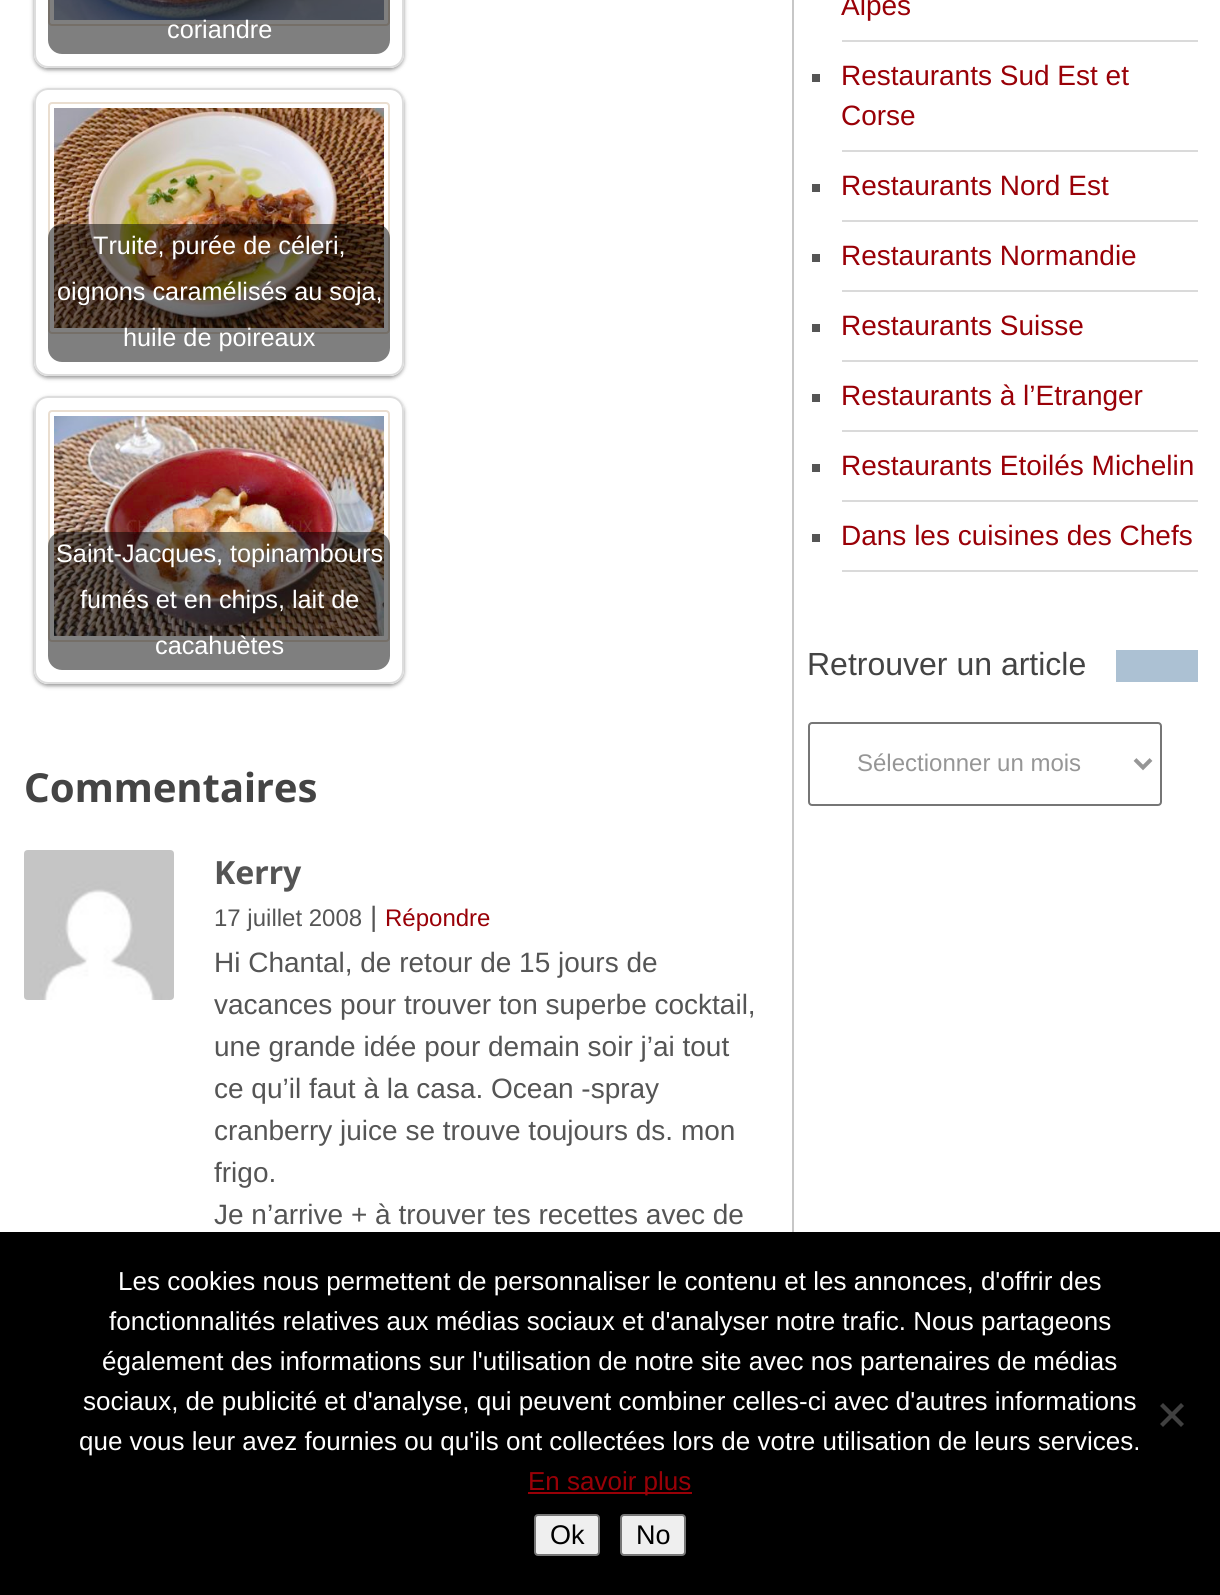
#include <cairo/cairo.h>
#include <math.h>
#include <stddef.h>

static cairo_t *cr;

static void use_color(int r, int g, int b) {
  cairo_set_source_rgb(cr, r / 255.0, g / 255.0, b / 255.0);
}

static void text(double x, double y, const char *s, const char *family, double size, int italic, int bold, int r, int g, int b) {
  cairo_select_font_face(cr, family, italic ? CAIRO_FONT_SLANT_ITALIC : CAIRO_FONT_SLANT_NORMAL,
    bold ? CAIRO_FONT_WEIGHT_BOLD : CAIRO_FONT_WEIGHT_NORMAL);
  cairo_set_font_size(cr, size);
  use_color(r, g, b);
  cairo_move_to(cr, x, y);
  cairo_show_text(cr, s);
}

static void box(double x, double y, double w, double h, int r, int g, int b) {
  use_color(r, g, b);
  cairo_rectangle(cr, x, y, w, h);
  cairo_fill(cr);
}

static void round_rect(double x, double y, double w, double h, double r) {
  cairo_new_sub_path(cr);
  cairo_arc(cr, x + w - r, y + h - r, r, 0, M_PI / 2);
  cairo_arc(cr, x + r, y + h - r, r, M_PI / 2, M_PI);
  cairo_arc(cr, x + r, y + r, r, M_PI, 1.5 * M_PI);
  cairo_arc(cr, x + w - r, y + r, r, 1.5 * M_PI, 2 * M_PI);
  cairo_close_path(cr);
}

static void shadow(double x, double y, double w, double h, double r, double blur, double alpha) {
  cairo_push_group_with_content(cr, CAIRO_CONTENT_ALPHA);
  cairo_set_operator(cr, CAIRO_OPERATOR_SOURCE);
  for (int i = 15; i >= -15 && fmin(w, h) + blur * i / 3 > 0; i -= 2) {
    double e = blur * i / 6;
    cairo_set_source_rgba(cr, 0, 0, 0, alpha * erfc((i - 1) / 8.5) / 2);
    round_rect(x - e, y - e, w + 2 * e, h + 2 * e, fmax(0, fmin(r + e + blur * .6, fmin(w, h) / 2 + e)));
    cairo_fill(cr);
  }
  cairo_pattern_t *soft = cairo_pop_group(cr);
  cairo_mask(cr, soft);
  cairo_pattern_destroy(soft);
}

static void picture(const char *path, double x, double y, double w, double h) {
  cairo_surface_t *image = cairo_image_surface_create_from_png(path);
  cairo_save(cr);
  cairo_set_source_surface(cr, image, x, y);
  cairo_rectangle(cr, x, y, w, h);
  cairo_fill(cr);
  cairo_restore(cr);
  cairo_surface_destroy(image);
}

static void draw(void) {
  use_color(255, 255, 255);
  cairo_paint(cr);
  box(792, 0, 2, 1232, 199, 199, 199);
  cairo_save(cr);
  cairo_set_fill_rule(cr, CAIRO_FILL_RULE_EVEN_ODD);
  cairo_new_path(cr);
  cairo_move_to(cr, 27, 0);
  cairo_line_to(cr, 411, 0);
  cairo_line_to(cr, 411, 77);
  cairo_line_to(cr, 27, 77);
  cairo_close_path(cr);
  cairo_move_to(cr, 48, -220);
  cairo_line_to(cr, 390, -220);
  cairo_curve_to(cr, 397.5, -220, 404, -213.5, 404, -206);
  cairo_line_to(cr, 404, 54);
  cairo_curve_to(cr, 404, 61.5, 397.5, 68, 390, 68);
  cairo_line_to(cr, 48, 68);
  cairo_curve_to(cr, 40.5, 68, 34, 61.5, 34, 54);
  cairo_line_to(cr, 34, -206);
  cairo_curve_to(cr, 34, -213.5, 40.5, -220, 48, -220);
  cairo_close_path(cr);
  cairo_clip(cr);
  use_color(0, 0, 0);
  shadow(34, -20, 370, 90, 14, 2, 0.4);
  cairo_restore(cr);
  round_rect(35, -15, 368, 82, 13);
  use_color(221, 221, 221);
  cairo_stroke(cr);
  round_rect(49, -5, 340, 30, 3);
  use_color(234, 222, 208);
  cairo_stroke(cr);
  picture("img_01.png", 54, 0, 330, 20);
  cairo_set_source_rgba(cr, 0, 0, 0, 0.5);
  round_rect(48, -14, 342, 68, 14);
  cairo_fill(cr);
  cairo_save(cr);
  cairo_set_fill_rule(cr, CAIRO_FILL_RULE_EVEN_ODD);
  cairo_new_path(cr);
  cairo_move_to(cr, 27, 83);
  cairo_line_to(cr, 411, 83);
  cairo_line_to(cr, 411, 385);
  cairo_line_to(cr, 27, 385);
  cairo_close_path(cr);
  cairo_move_to(cr, 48, 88);
  cairo_line_to(cr, 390, 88);
  cairo_curve_to(cr, 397.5, 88, 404, 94.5, 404, 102);
  cairo_line_to(cr, 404, 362);
  cairo_curve_to(cr, 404, 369.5, 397.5, 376, 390, 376);
  cairo_line_to(cr, 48, 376);
  cairo_curve_to(cr, 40.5, 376, 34, 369.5, 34, 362);
  cairo_line_to(cr, 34, 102);
  cairo_curve_to(cr, 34, 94.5, 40.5, 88, 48, 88);
  cairo_close_path(cr);
  cairo_clip(cr);
  use_color(0, 0, 0);
  shadow(34, 90, 370, 288, 14, 2, 0.4);
  cairo_restore(cr);
  round_rect(35, 89, 368, 286, 13);
  use_color(221, 221, 221);
  cairo_stroke(cr);
  round_rect(49, 103, 340, 230, 3);
  use_color(234, 222, 208);
  cairo_stroke(cr);
  picture("img_02.png", 54, 108, 330, 220);
  cairo_set_source_rgba(cr, 0, 0, 0, 0.5);
  round_rect(48, 224, 342, 138, 14);
  cairo_fill(cr);
  cairo_save(cr);
  cairo_set_fill_rule(cr, CAIRO_FILL_RULE_EVEN_ODD);
  cairo_new_path(cr);
  cairo_move_to(cr, 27, 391);
  cairo_line_to(cr, 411, 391);
  cairo_line_to(cr, 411, 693);
  cairo_line_to(cr, 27, 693);
  cairo_close_path(cr);
  cairo_move_to(cr, 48, 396);
  cairo_line_to(cr, 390, 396);
  cairo_curve_to(cr, 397.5, 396, 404, 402.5, 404, 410);
  cairo_line_to(cr, 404, 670);
  cairo_curve_to(cr, 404, 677.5, 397.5, 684, 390, 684);
  cairo_line_to(cr, 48, 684);
  cairo_curve_to(cr, 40.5, 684, 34, 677.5, 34, 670);
  cairo_line_to(cr, 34, 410);
  cairo_curve_to(cr, 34, 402.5, 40.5, 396, 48, 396);
  cairo_close_path(cr);
  cairo_clip(cr);
  use_color(0, 0, 0);
  shadow(34, 398, 370, 288, 14, 2, 0.4);
  cairo_restore(cr);
  round_rect(35, 397, 368, 286, 13);
  use_color(221, 221, 221);
  cairo_stroke(cr);
  round_rect(49, 411, 340, 230, 3);
  use_color(234, 222, 208);
  cairo_stroke(cr);
  picture("img_03.png", 54, 416, 330, 220);
  cairo_set_source_rgba(cr, 0, 0, 0, 0.5);
  round_rect(48, 532, 342, 138, 14);
  cairo_fill(cr);
  picture("img_04.png", 24, 850, 150, 150);
  box(842, 40, 356, 2, 218, 218, 218);
  box(842, 150, 356, 2, 218, 218, 218);
  box(812, 74, 8, 8, 85, 85, 85);
  box(842, 220, 356, 2, 218, 218, 218);
  box(812, 184, 8, 8, 85, 85, 85);
  box(842, 290, 356, 2, 218, 218, 218);
  box(812, 254, 8, 8, 85, 85, 85);
  box(842, 360, 356, 2, 218, 218, 218);
  box(812, 324, 8, 8, 85, 85, 85);
  box(842, 430, 356, 2, 218, 218, 218);
  box(812, 394, 8, 8, 85, 85, 85);
  box(842, 500, 356, 2, 218, 218, 218);
  box(812, 464, 8, 8, 85, 85, 85);
  box(842, 570, 356, 2, 218, 218, 218);
  box(812, 534, 8, 8, 85, 85, 85);
  box(1116, 650, 82, 32, 172, 193, 211);
  round_rect(809, 723, 352, 82, 3);
  use_color(118, 118, 118);
  cairo_stroke(cr);
  cairo_new_path(cr);
  cairo_move_to(cr, 1135, 759.5);
  cairo_line_to(cr, 1143, 767.5);
  cairo_line_to(cr, 1151, 759.5);
  use_color(150, 150, 150);
  cairo_set_line_width(cr, 4);
  cairo_stroke(cr);
  box(0, 1232, 1220, 363, 0, 0, 0);
  box(528, 1492, 164, 2, 153, 0, 7);
  use_color(64, 64, 64);
  cairo_new_path(cr);
  cairo_move_to(cr, 1181, 1403);
  cairo_line_to(cr, 1184, 1406);
  cairo_line_to(cr, 1163, 1427);
  cairo_line_to(cr, 1160, 1424);
  cairo_close_path(cr);
  cairo_fill(cr);
  cairo_new_path(cr);
  cairo_move_to(cr, 1160, 1406);
  cairo_line_to(cr, 1163, 1403);
  cairo_line_to(cr, 1184, 1424);
  cairo_line_to(cr, 1181, 1427);
  cairo_close_path(cr);
  cairo_fill(cr);
  use_color(239, 239, 239);
  round_rect(535, 1515, 64, 40, 3);
  cairo_fill_preserve(cr);
  use_color(118, 118, 118);
  cairo_set_line_width(cr, 2);
  cairo_stroke(cr);
  use_color(239, 239, 239);
  round_rect(621, 1515, 64, 40, 3);
  cairo_fill_preserve(cr);
  use_color(118, 118, 118);
  cairo_stroke(cr);
  text(167, 38, "coriandre", "Liberation Sans", 25.25, 0, 0, 255, 255, 255);
  text(93, 254, "Truite, purée de céleri,", "Liberation Sans", 25.25, 0, 0, 255, 255, 255);
  text(57, 300, "oignons caramélisés au soja,", "Liberation Sans", 25.25, 0, 0, 255, 255, 255);
  text(123, 346, "huile de poireaux", "Liberation Sans", 25.25, 0, 0, 255, 255, 255);
  text(56, 562, "Saint-Jacques, topinambours", "Liberation Sans", 25.25, 0, 0, 255, 255, 255);
  text(80, 608, "fumés et en chips, lait de", "Liberation Sans", 25.25, 0, 0, 255, 255, 255);
  text(155, 654, "cacahuètes", "Liberation Sans", 25.25, 0, 0, 255, 255, 255);
  text(24, 802, "Commentaires", "Noto Sans", 40, 0, 1, 68, 68, 68);
  text(214, 884, "Kerry", "Noto Sans", 32, 0, 1, 85, 85, 85);
  text(214, 926, "17 juillet 2008", "Liberation Sans", 24, 0, 0, 85, 85, 85);
  text(370, 926, "|", "Liberation Sans", 28, 0, 0, 85, 85, 85);
  text(385, 926, "Répondre", "Liberation Sans", 24, 0, 0, 153, 0, 7);
  text(214, 972, "Hi Chantal, de retour de 15 jours de", "Liberation Sans", 28, 0, 0, 85, 85, 85);
  text(214, 1014, "vacances pour trouver ton superbe cocktail,", "Liberation Sans", 28, 0, 0, 85, 85, 85);
  text(214, 1056, "une grande idée pour demain soir j’ai tout", "Liberation Sans", 28, 0, 0, 85, 85, 85);
  text(214, 1098, "ce qu’il faut à la casa. Ocean -spray", "Liberation Sans", 28, 0, 0, 85, 85, 85);
  text(214, 1140, "cranberry juice se trouve toujours ds. mon", "Liberation Sans", 28, 0, 0, 85, 85, 85);
  text(214, 1182, "frigo.", "Liberation Sans", 28, 0, 0, 85, 85, 85);
  text(214, 1224, "Je n’arrive + à trouver tes recettes avec de", "Liberation Sans", 28, 0, 0, 85, 85, 85);
  text(841, 15, "Alpes", "Liberation Sans", 28, 0, 0, 153, 0, 7);
  text(841, 85, "Restaurants Sud Est et", "Liberation Sans", 28, 0, 0, 153, 0, 7);
  text(841, 125, "Corse", "Liberation Sans", 28, 0, 0, 153, 0, 7);
  text(841, 195, "Restaurants Nord Est", "Liberation Sans", 28, 0, 0, 153, 0, 7);
  text(841, 265, "Restaurants Normandie", "Liberation Sans", 28, 0, 0, 153, 0, 7);
  text(841, 335, "Restaurants Suisse", "Liberation Sans", 28, 0, 0, 153, 0, 7);
  text(841, 405, "Restaurants à l’Etranger", "Liberation Sans", 28, 0, 0, 153, 0, 7);
  text(841, 475, "Restaurants Etoilés Michelin", "Liberation Sans", 28, 0, 0, 153, 0, 7);
  text(841, 545, "Dans les cuisines des Chefs", "Liberation Sans", 28, 0, 0, 153, 0, 7);
  text(807, 675, "Retrouver un article", "Liberation Sans", 32, 0, 0, 68, 68, 68);
  text(857, 771, "Sélectionner un mois", "Liberation Sans", 24, 0, 0, 150, 150, 150);
  text(118, 1290, "Les cookies nous permettent de personnaliser le contenu et les annonces, d'offrir des", "Liberation Sans", 26, 0, 0, 255, 255, 255);
  text(109, 1330, "fonctionnalités relatives aux médias sociaux et d'analyser notre trafic. Nous partageons", "Liberation Sans", 26, 0, 0, 255, 255, 255);
  text(102, 1370, "également des informations sur l'utilisation de notre site avec nos partenaires de médias", "Liberation Sans", 26, 0, 0, 255, 255, 255);
  text(83, 1410, "sociaux, de publicité et d'analyse, qui peuvent combiner celles-ci avec d'autres informations", "Liberation Sans", 26, 0, 0, 255, 255, 255);
  text(79, 1450, "que vous leur avez fournies ou qu'ils ont collectées lors de votre utilisation de leurs services.", "Liberation Sans", 26, 0, 0, 255, 255, 255);
  text(528, 1490, "En savoir plus", "Liberation Sans", 26, 0, 0, 153, 0, 7);
  text(550, 1544, "Ok", "Liberation Sans", 27, 0, 0, 0, 0, 0);
  text(636, 1544, "No", "Liberation Sans", 27, 0, 0, 0, 0, 0);
}

int main(void) {
  cairo_surface_t *surface = cairo_image_surface_create(CAIRO_FORMAT_RGB24, 1220, 1595);
  cr = cairo_create(surface);
  cairo_font_options_t *options = cairo_font_options_create();
  cairo_font_options_set_hint_metrics(options, CAIRO_HINT_METRICS_OFF);
  cairo_font_options_set_hint_style(options, CAIRO_HINT_STYLE_NONE);
  cairo_set_font_options(cr, options);
  cairo_set_miter_limit(cr, 4);
  draw();
  cairo_surface_write_to_png(surface, "out.png");
  cairo_font_options_destroy(options);
  cairo_destroy(cr);
  cairo_surface_destroy(surface);
  return 0;
}
